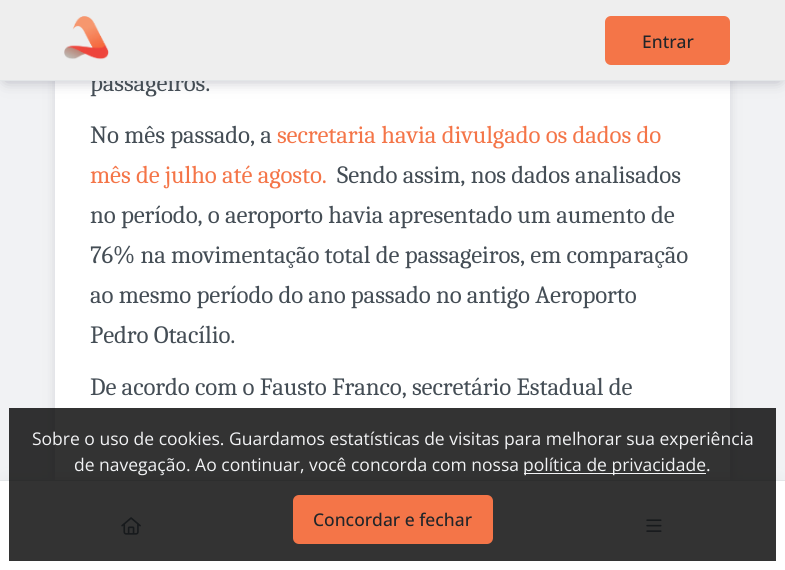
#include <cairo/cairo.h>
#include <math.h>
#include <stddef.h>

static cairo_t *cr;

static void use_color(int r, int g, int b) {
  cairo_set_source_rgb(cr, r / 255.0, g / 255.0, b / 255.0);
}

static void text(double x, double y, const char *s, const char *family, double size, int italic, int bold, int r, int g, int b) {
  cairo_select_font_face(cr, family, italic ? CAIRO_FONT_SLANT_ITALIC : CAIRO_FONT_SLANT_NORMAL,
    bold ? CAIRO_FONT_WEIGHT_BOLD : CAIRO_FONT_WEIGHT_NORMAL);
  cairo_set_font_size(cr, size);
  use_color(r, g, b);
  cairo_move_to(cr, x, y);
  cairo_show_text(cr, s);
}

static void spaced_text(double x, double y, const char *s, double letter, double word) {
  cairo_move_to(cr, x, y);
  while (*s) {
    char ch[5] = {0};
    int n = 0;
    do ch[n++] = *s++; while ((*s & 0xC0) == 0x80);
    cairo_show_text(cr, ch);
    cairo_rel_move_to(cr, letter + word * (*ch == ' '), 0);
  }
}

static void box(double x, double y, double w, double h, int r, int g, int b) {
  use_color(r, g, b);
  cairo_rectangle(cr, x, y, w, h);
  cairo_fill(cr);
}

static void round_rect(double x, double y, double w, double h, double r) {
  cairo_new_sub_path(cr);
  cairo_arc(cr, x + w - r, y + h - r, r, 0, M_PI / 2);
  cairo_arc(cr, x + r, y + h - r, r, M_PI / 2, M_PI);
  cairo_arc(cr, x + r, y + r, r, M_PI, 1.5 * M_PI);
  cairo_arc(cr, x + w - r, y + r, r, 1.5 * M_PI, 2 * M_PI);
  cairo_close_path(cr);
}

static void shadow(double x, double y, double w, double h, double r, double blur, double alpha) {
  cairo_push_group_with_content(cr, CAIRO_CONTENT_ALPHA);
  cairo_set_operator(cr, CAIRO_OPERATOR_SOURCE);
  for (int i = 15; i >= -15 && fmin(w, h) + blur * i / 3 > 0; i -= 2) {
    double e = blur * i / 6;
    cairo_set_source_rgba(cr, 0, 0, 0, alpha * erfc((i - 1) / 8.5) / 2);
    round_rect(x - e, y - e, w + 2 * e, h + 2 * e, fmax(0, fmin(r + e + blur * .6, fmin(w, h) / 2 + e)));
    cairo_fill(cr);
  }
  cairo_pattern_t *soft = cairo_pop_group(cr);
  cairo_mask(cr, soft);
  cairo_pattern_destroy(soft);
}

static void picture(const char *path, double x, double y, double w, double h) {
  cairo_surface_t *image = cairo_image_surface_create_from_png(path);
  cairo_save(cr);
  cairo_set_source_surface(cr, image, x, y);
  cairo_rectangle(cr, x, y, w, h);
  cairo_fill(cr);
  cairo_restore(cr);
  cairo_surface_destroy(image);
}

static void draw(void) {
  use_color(241, 242, 244);
  cairo_paint(cr);
  use_color(100, 100, 118);
  shadow(61, -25, 663, 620, 2.5, 7.5, 0.5);
  box(55, 81, 675, 399, 255, 255, 255);
  use_color(100, 100, 118);
  shadow(6, 11, 773, 69, 0, 7.5, 0.5);
  use_color(227, 230, 232);
  shadow(6, 481, 773, 78, 0, 7.5, 1);
  box(0, 481, 785, 89, 255, 255, 255);
  box(0, 480, 785, 1, 227, 230, 232);
  picture("img_02.png", 121, 517, 20, 18);
  picture("img_03.png", 646, 519, 16, 13);
  cairo_set_source_rgba(cr, 0, 0, 0, 0.8);
  cairo_rectangle(cr, 9, 408, 767, 153);
  cairo_fill(cr);
  box(524, 473, 182, 1, 241, 242, 244);
  use_color(244, 117, 72);
  round_rect(294.5, 496.5, 197, 46, 4.5);
  cairo_fill_preserve(cr);
  cairo_set_line_width(cr, 3);
  cairo_stroke(cr);
  cairo_select_font_face(cr, "Caladea", CAIRO_FONT_SLANT_NORMAL, CAIRO_FONT_WEIGHT_NORMAL);
  cairo_set_font_size(cr, 24.85);
  use_color(68, 77, 85);
  spaced_text(90, 91, "passageiros.", -0.12, 0);
  box(0, 0, 785, 80, 238, 238, 238);
  use_color(244, 117, 72);
  round_rect(606.5, 17.5, 122, 46, 4.5);
  cairo_fill_preserve(cr);
  cairo_stroke(cr);
  text(642, 48, "Entrar", "Open Sans Medium", 17.5, 0, 0, 33, 37, 41);
  picture("img_01.png", 64, 16, 45, 44);
  box(0, 80, 785, 1, 227, 230, 232);
  cairo_select_font_face(cr, "Caladea", CAIRO_FONT_SLANT_NORMAL, CAIRO_FONT_WEIGHT_NORMAL);
  cairo_set_font_size(cr, 24.85);
  use_color(68, 77, 85);
  spaced_text(90, 143, "No mês passado, a", -0.12, 0);
  use_color(244, 117, 72);
  spaced_text(277, 143, "secretaria havia divulgado os dados do", -0.12, 0);
  spaced_text(90, 183, "mês de julho até agosto.", -0.12, 0);
  use_color(68, 77, 85);
  spaced_text(337, 183, "Sendo assim, nos dados analisados", -0.12, 0);
  spaced_text(90, 223, "no período, o aeroporto havia apresentado um aumento de", -0.12, 0);
  spaced_text(90, 263, "76% na movimentação total de passageiros, em comparação", -0.12, 0);
  spaced_text(90, 303, "ao mesmo período do ano passado no antigo Aeroporto", -0.12, 0);
  spaced_text(90, 343, "Pedro Otacílio.", -0.12, 0);
  spaced_text(90, 395, "De acordo com o Fausto Franco, secretário Estadual de", -0.12, 0);
  text(32, 445, "Sobre o uso de cookies. Guardamos estatísticas de visitas para melhorar sua experiência", "Open Sans", 17.5, 0, 0, 241, 242, 244);
  text(74, 471, "de navegação. Ao continuar, você concorda com nossa", "Open Sans", 17.5, 0, 0, 241, 242, 244);
  text(523, 471, "política de privacidade.", "Open Sans", 17.5, 0, 0, 241, 242, 244);
  text(313, 526, "Concordar e fechar", "Open Sans Medium", 17.5, 0, 0, 33, 37, 41);
}

int main(void) {
  cairo_surface_t *surface = cairo_image_surface_create(CAIRO_FORMAT_RGB24, 785, 570);
  cr = cairo_create(surface);
  cairo_font_options_t *options = cairo_font_options_create();
  cairo_font_options_set_hint_metrics(options, CAIRO_HINT_METRICS_OFF);
  cairo_font_options_set_hint_style(options, CAIRO_HINT_STYLE_NONE);
  cairo_set_font_options(cr, options);
  cairo_set_miter_limit(cr, 4);
  draw();
  cairo_surface_write_to_png(surface, "out.png");
  cairo_font_options_destroy(options);
  cairo_destroy(cr);
  cairo_surface_destroy(surface);
  return 0;
}
